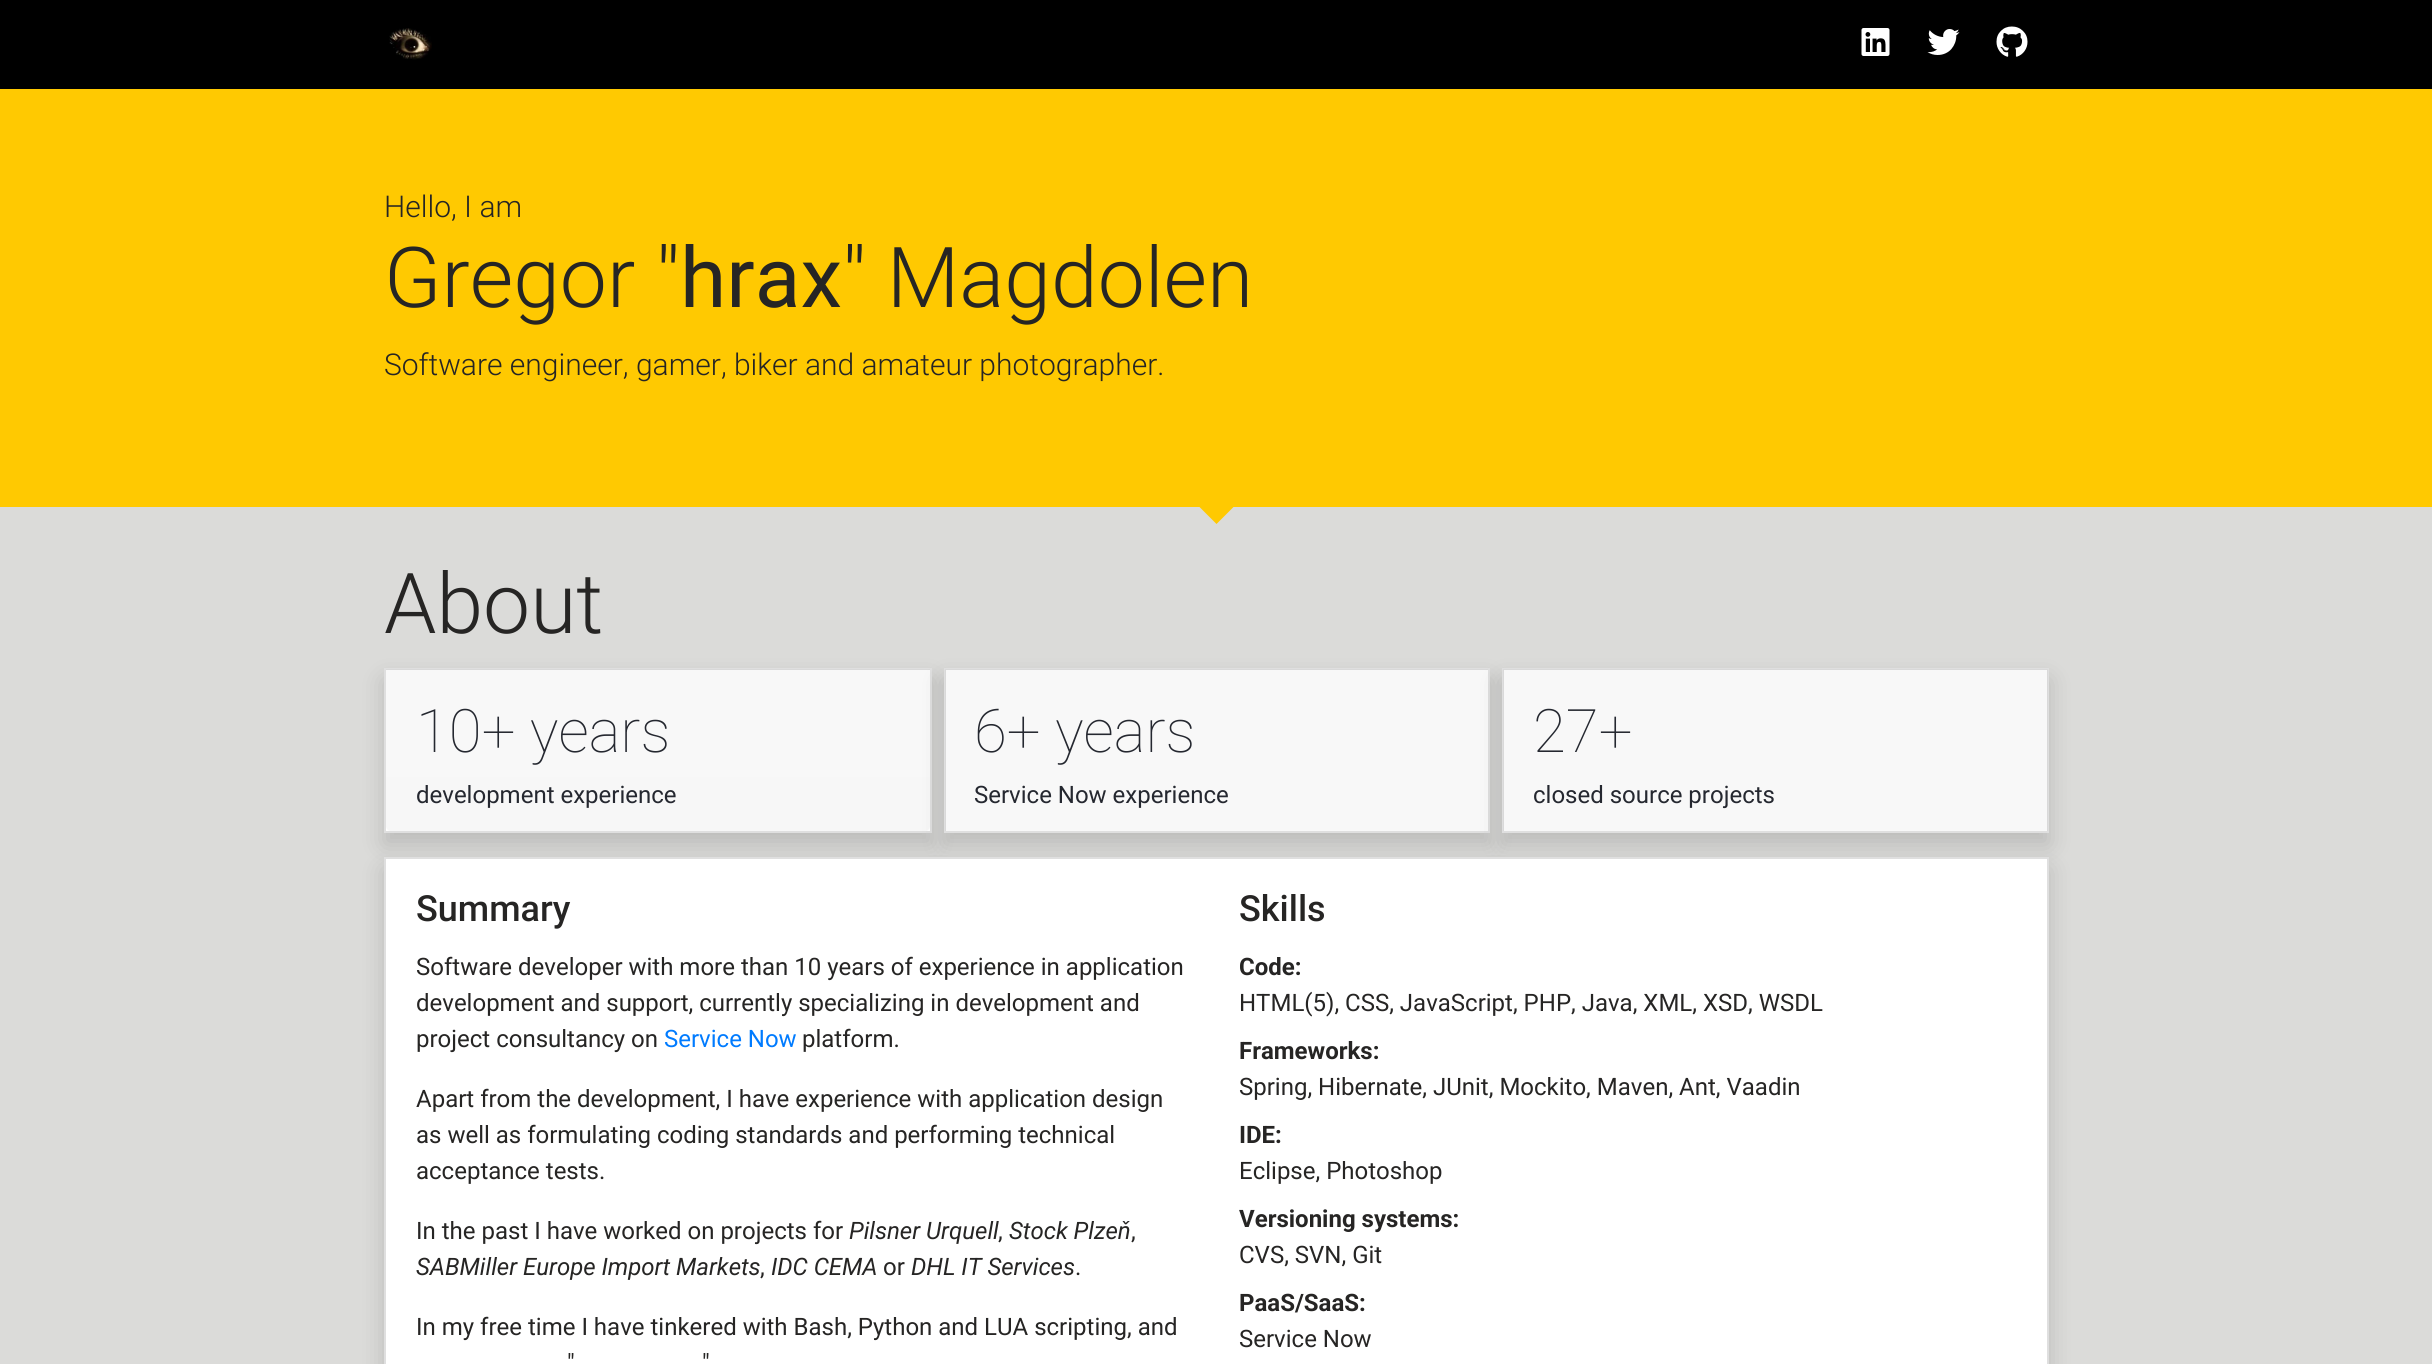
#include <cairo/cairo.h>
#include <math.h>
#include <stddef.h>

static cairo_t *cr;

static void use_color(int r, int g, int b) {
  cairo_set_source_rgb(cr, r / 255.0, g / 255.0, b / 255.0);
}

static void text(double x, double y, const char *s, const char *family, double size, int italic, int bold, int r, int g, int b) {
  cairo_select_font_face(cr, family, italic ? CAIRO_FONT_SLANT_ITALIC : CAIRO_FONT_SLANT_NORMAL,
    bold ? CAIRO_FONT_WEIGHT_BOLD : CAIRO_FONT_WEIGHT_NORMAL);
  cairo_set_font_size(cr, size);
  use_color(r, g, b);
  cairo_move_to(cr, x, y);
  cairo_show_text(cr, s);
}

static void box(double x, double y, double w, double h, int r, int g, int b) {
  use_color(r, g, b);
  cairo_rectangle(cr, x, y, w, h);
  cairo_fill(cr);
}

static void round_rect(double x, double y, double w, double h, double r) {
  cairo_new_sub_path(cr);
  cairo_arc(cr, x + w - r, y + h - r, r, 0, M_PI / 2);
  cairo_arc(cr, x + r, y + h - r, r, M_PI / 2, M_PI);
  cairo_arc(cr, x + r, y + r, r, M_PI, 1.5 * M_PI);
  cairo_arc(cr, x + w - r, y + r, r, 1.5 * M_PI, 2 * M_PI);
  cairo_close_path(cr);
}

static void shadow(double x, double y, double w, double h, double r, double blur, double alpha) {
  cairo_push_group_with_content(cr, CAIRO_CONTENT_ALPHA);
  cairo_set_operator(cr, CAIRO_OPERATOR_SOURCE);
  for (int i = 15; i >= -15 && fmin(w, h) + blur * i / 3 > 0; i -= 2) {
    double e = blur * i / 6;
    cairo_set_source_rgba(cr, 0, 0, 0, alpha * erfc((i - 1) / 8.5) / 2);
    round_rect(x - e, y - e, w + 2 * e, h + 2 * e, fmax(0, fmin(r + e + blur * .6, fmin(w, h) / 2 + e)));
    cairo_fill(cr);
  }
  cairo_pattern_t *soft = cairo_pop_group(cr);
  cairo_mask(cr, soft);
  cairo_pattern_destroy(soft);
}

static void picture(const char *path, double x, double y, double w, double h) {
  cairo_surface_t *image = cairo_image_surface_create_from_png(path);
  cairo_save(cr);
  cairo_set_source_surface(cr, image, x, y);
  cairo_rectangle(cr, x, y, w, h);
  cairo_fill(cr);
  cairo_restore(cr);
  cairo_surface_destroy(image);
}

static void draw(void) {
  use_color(219, 219, 217);
  cairo_paint(cr);
  box(0, 0, 2432, 89, 0, 0, 0);
  picture("img_01.png", 389, 28, 43, 32);
  picture("img_02.png", 1861, 28, 29, 28);
  picture("img_03.png", 1927, 29, 33, 26);
  picture("img_04.png", 1996, 26, 32, 31);
  box(0, 89, 2432, 418, 255, 201, 1);
  cairo_new_path(cr);
  cairo_move_to(cr, 1216.5, 490);
  cairo_line_to(cr, 1233.5, 507);
  cairo_line_to(cr, 1216.5, 524);
  cairo_line_to(cr, 1199.5, 507);
  cairo_close_path(cr);
  cairo_fill(cr);
  use_color(0, 0, 0);
  shadow(384, 680, 548, 165, 0, 12, 0.15);
  use_color(255, 255, 255);
  cairo_rectangle(cr, 385, 669, 546, 163);
  cairo_fill_preserve(cr);
  use_color(223, 223, 223);
  cairo_stroke(cr);
  cairo_set_source_rgba(cr, 0, 0, 0, 0.03);
  cairo_rectangle(cr, 386, 669, 544, 108);
  cairo_fill(cr);
  use_color(247, 247, 247);
  cairo_new_path(cr);
  cairo_move_to(cr, 386, 777);
  cairo_line_to(cr, 930, 777);
  cairo_line_to(cr, 930, 826);
  cairo_curve_to(cr, 930, 829, 928, 831, 925, 831);
  cairo_line_to(cr, 391, 831);
  cairo_curve_to(cr, 388, 831, 386, 829, 386, 826);
  cairo_close_path(cr);
  cairo_fill(cr);
  use_color(0, 0, 0);
  shadow(944, 680, 546, 165, 0, 12, 0.15);
  use_color(255, 255, 255);
  cairo_rectangle(cr, 945, 669, 544, 163);
  cairo_fill_preserve(cr);
  use_color(223, 223, 223);
  cairo_stroke(cr);
  cairo_set_source_rgba(cr, 0, 0, 0, 0.03);
  cairo_rectangle(cr, 945, 669, 543, 108);
  cairo_fill(cr);
  cairo_rectangle(cr, 945, 777, 543, 54);
  cairo_fill(cr);
  use_color(0, 0, 0);
  shadow(1502, 680, 547, 165, 0, 12, 0.15);
  use_color(255, 255, 255);
  cairo_rectangle(cr, 1503, 669, 545, 163);
  cairo_fill_preserve(cr);
  use_color(223, 223, 223);
  cairo_stroke(cr);
  cairo_set_source_rgba(cr, 0, 0, 0, 0.03);
  cairo_rectangle(cr, 1503, 669, 545, 108);
  cairo_fill(cr);
  cairo_rectangle(cr, 1503, 777, 545, 54);
  cairo_fill(cr);
  use_color(0, 0, 0);
  shadow(384, 869, 1665, 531, 0, 12, 0.15);
  use_color(255, 255, 255);
  cairo_rectangle(cr, 385, 858, 1663, 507);
  cairo_fill_preserve(cr);
  use_color(223, 223, 223);
  cairo_stroke(cr);
  text(384, 217, "Hello, I am", "Roboto Light", 30, 0, 0, 38, 37, 36);
  text(384, 307, "Gregor \"", "Roboto Light", 84, 0, 0, 38, 37, 36);
  text(680, 307, "hrax", "Roboto", 84, 0, 0, 38, 37, 36);
  text(842, 307, "\" Magdolen", "Roboto Light", 84, 0, 0, 38, 37, 36);
  text(384, 375, "Software engineer, gamer, biker and amateur photographer.", "Roboto Light", 30, 0, 0, 38, 37, 36);
  text(384, 633, "About", "Roboto Light", 84, 0, 0, 38, 37, 36);
  text(416, 752, "10+ years", "Roboto Thin", 60, 0, 0, 37, 40, 48);
  text(416, 803, "development experience", "Roboto", 24, 0, 0, 37, 40, 48);
  text(974, 752, "6+ years", "Roboto Thin", 60, 0, 0, 37, 40, 48);
  text(974, 803, "Service Now experience", "Roboto", 24, 0, 0, 37, 40, 48);
  text(1533, 752, "27+", "Roboto Thin", 60, 0, 0, 37, 40, 48);
  text(1533, 803, "closed source projects", "Roboto", 24, 0, 0, 37, 40, 48);
  text(416, 921, "Summary", "Roboto Medium", 36, 0, 0, 38, 37, 36);
  text(416, 975, "Software developer with more than 10 years of experience in application", "Roboto", 24, 0, 0, 38, 37, 36);
  text(416, 1011, "development and support, currently specializing in development and", "Roboto", 24, 0, 0, 38, 37, 36);
  text(416, 1047, "project consultancy on", "Roboto", 24, 0, 0, 38, 37, 36);
  text(664, 1047, "Service Now", "Roboto", 24, 0, 0, 0, 123, 255);
  text(802, 1047, "platform.", "Roboto", 24, 0, 0, 38, 37, 36);
  text(416, 1107, "Apart from the development, I have experience with application design", "Roboto", 24, 0, 0, 38, 37, 36);
  text(416, 1143, "as well as formulating coding standards and performing technical", "Roboto", 24, 0, 0, 38, 37, 36);
  text(416, 1179, "acceptance tests.", "Roboto", 24, 0, 0, 38, 37, 36);
  text(416, 1239, "In the past I have worked on projects for", "Roboto", 24, 0, 0, 38, 37, 36);
  text(849, 1239, "Pilsner Urquell", "Roboto", 24, 1, 0, 38, 37, 36);
  text(998, 1239, ",", "Roboto", 24, 0, 0, 38, 37, 36);
  text(1009, 1239, "Stock Plzeň", "Roboto", 24, 1, 0, 38, 37, 36);
  text(1131, 1239, ",", "Roboto", 24, 0, 0, 38, 37, 36);
  text(416, 1275, "SABMiller Europe Import Markets", "Roboto", 24, 1, 0, 38, 37, 36);
  text(760, 1275, ",", "Roboto", 24, 0, 0, 38, 37, 36);
  text(771, 1275, "IDC CEMA", "Roboto", 24, 1, 0, 38, 37, 36);
  text(883, 1275, "or", "Roboto", 24, 0, 0, 38, 37, 36);
  text(911, 1275, "DHL IT Services", "Roboto", 24, 1, 0, 38, 37, 36);
  text(1075, 1275, ".", "Roboto", 24, 0, 0, 38, 37, 36);
  text(416, 1335, "In my free time I have tinkered with Bash, Python and LUA scripting, and", "Roboto", 24, 0, 0, 38, 37, 36);
  text(567, 1371, "\"", "Roboto", 24, 0, 0, 38, 37, 36);
  text(702, 1371, "\"", "Roboto", 24, 0, 0, 38, 37, 36);
  text(1239, 921, "Skills", "Roboto Medium", 36, 0, 0, 38, 37, 36);
  text(1239, 975, "Code:", "Roboto", 24, 0, 1, 38, 37, 36);
  text(1239, 1011, "HTML(5), CSS, JavaScript, PHP, Java, XML, XSD, WSDL", "Roboto", 24, 0, 0, 38, 37, 36);
  text(1239, 1059, "Frameworks:", "Roboto", 24, 0, 1, 38, 37, 36);
  text(1239, 1095, "Spring, Hibernate, JUnit, Mockito, Maven, Ant, Vaadin", "Roboto", 24, 0, 0, 38, 37, 36);
  text(1239, 1143, "IDE:", "Roboto", 24, 0, 1, 38, 37, 36);
  text(1239, 1179, "Eclipse, Photoshop", "Roboto", 24, 0, 0, 38, 37, 36);
  text(1239, 1227, "Versioning systems:", "Roboto", 24, 0, 1, 38, 37, 36);
  text(1239, 1263, "CVS, SVN, Git", "Roboto", 24, 0, 0, 38, 37, 36);
  text(1239, 1311, "PaaS/SaaS:", "Roboto", 24, 0, 1, 38, 37, 36);
  text(1239, 1347, "Service Now", "Roboto", 24, 0, 0, 38, 37, 36);
}

int main(void) {
  cairo_surface_t *surface = cairo_image_surface_create(CAIRO_FORMAT_RGB24, 2432, 1364);
  cr = cairo_create(surface);
  cairo_font_options_t *options = cairo_font_options_create();
  cairo_font_options_set_hint_metrics(options, CAIRO_HINT_METRICS_OFF);
  cairo_font_options_set_hint_style(options, CAIRO_HINT_STYLE_NONE);
  cairo_set_font_options(cr, options);
  cairo_set_miter_limit(cr, 4);
  draw();
  cairo_surface_write_to_png(surface, "out.png");
  cairo_font_options_destroy(options);
  cairo_destroy(cr);
  cairo_surface_destroy(surface);
  return 0;
}
